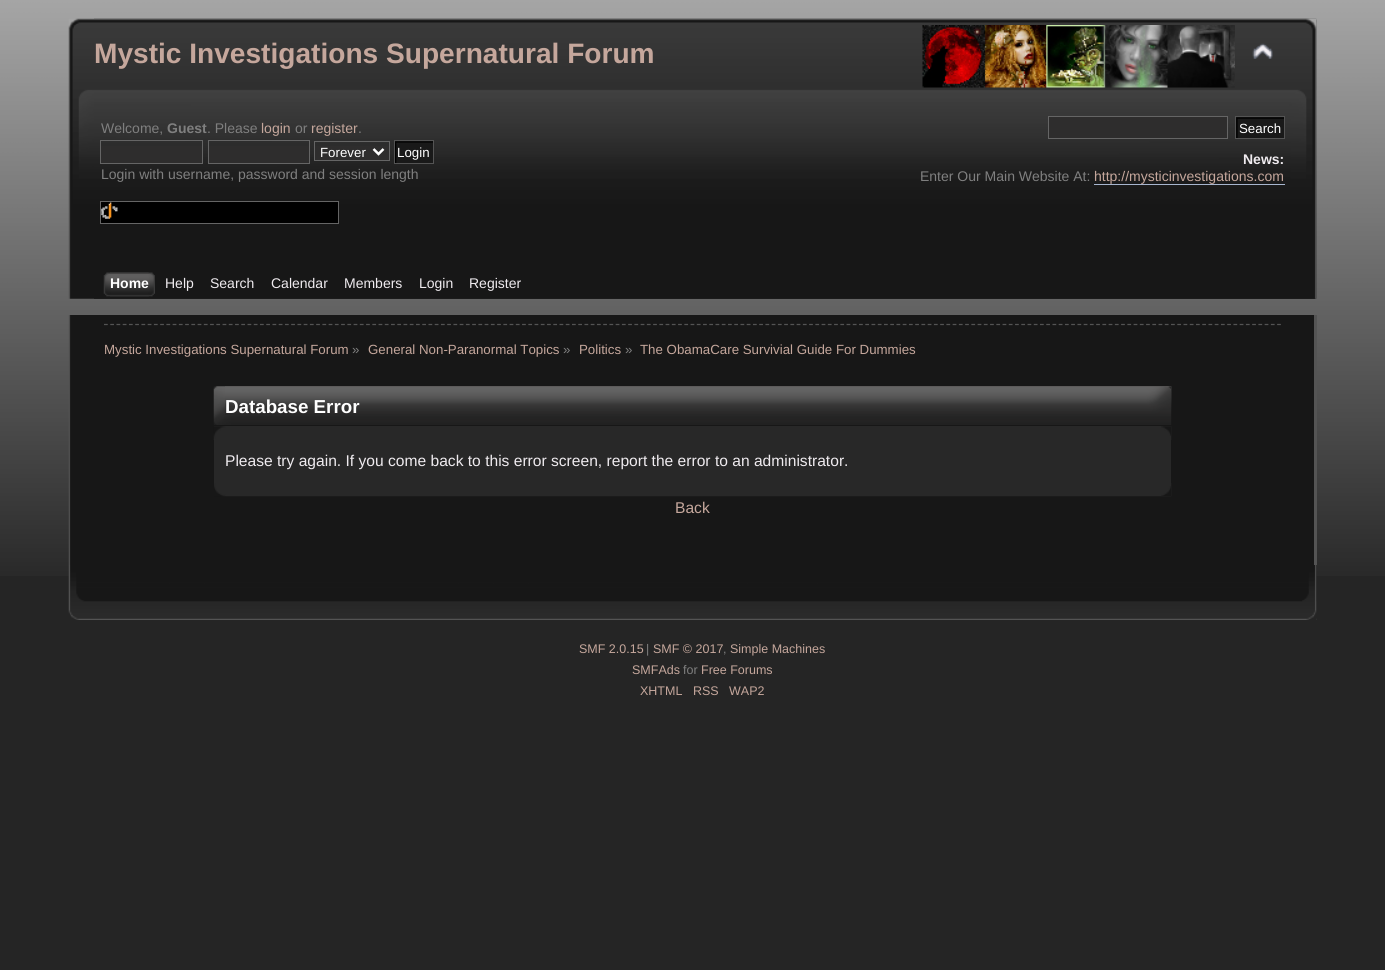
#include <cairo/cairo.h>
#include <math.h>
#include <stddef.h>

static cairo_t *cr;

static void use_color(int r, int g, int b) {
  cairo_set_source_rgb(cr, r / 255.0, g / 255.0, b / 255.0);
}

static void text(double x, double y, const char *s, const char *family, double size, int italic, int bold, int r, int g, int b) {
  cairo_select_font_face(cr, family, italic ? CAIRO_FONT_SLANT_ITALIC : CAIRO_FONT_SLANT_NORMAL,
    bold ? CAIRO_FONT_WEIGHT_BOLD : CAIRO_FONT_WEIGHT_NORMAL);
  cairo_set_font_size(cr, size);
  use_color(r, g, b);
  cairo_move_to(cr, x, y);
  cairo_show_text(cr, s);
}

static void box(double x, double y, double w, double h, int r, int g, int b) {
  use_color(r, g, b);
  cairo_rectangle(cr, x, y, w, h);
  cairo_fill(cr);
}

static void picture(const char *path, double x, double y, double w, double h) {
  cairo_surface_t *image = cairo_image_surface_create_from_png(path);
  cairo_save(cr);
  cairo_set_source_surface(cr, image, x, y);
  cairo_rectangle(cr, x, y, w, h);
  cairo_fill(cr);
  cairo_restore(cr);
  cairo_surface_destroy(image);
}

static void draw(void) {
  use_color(37, 37, 37);
  cairo_paint(cr);
  picture("img_01.png", 0, 0, 1385, 576);
  picture("img_02.png", 68, 18, 1249, 281);
  picture("img_03.png", 94, 18, 1223, 281);
  picture("img_04.png", 922, 25, 313, 63);
  picture("img_05.png", 1252, 43, 21, 16);
  box(101, 146, 101, 17, 46, 45, 45);
  cairo_rectangle(cr, 100.5, 140.5, 102, 23);
  use_color(101, 101, 101);
  cairo_set_line_width(cr, 1);
  cairo_stroke(cr);
  box(209, 146, 100, 17, 46, 45, 45);
  cairo_rectangle(cr, 208.5, 140.5, 101, 23);
  use_color(101, 101, 101);
  cairo_stroke(cr);
  box(315, 146, 74, 14, 46, 45, 45);
  cairo_rectangle(cr, 314.5, 141.5, 75, 19);
  use_color(101, 101, 101);
  cairo_stroke(cr);
  cairo_new_path(cr);
  cairo_move_to(cr, 373.5, 149);
  cairo_line_to(cr, 378.5, 154);
  cairo_line_to(cr, 383.5, 149);
  use_color(255, 255, 255);
  cairo_set_line_width(cr, 2.5);
  cairo_stroke(cr);
  picture("img_06.png", 395, 141, 38, 22);
  cairo_rectangle(cr, 394.5, 140.5, 39, 23);
  use_color(84, 84, 84);
  cairo_set_line_width(cr, 1);
  cairo_stroke(cr);
  box(101, 202, 237, 21, 0, 0, 0);
  picture("img_07.png", 101, 202, 17, 17);
  cairo_rectangle(cr, 100.5, 201.5, 238, 22);
  use_color(101, 101, 101);
  cairo_stroke(cr);
  use_color(46, 45, 45);
  cairo_rectangle(cr, 1048.5, 116.5, 179, 22);
  cairo_fill_preserve(cr);
  use_color(101, 101, 101);
  cairo_stroke(cr);
  box(1236, 117, 48, 21, 25, 25, 25);
  picture("img_08.png", 1236, 117, 48, 21);
  cairo_rectangle(cr, 1235.5, 116.5, 49, 22);
  use_color(84, 84, 84);
  cairo_stroke(cr);
  box(1094, 184, 191, 1, 168, 182, 207);
  picture("img_09.png", 110, 272, 45, 25);
  picture("img_10.png", 103, 272, 46, 25);
  picture("img_11.png", 68, 315, 1246, 250);
  box(1314, 315, 3, 250, 84, 84, 84);
  cairo_new_path(cr);
  cairo_move_to(cr, 104, 324.5);
  cairo_line_to(cr, 1281, 324.5);
  cairo_set_line_width(cr, 1.2);
  cairo_set_dash(cr, (double[]){3.75, 2.49}, 2, 0);
  cairo_stroke(cr);
  picture("img_12.png", 213, 386, 959, 39);
  picture("img_13.png", 225, 386, 946, 29);
  box(214, 426, 957, 57, 40, 40, 40);
  picture("img_14.png", 213, 426, 959, 14);
  picture("img_15.png", 1161, 426, 10, 10);
  picture("img_16.png", 214, 483, 958, 14);
  picture("img_17.png", 1161, 486, 10, 10);
  picture("img_18.png", 68, 565, 1249, 55);
  picture("img_19.png", 1302, 565, 15, 55);
  text(94, 63, "Mystic Investigations Supernatural Forum", "Liberation Sans", 28.1, 0, 1, 197, 167, 156);
  text(101, 133, "Welcome,", "Liberation Sans", 14, 0, 0, 127, 127, 127);
  text(167, 133, "Guest", "Liberation Sans", 14, 0, 1, 127, 127, 127);
  text(207, 133, ". Please", "Liberation Sans", 14, 0, 0, 127, 127, 127);
  text(261, 133, "login", "Liberation Sans", 14, 0, 0, 197, 167, 156);
  text(295, 133, "or", "Liberation Sans", 14, 0, 0, 127, 127, 127);
  text(311, 133, "register", "Liberation Sans", 14, 0, 0, 197, 167, 156);
  text(358, 133, ".", "Liberation Sans", 14, 0, 0, 127, 127, 127);
  text(320, 157, "Forever", "Liberation Sans", 13.3, 0, 0, 255, 255, 255);
  text(397, 157, "Login", "Liberation Sans", 13.3, 0, 0, 255, 255, 255);
  text(101, 179, "Login with username, password and session length", "Liberation Sans", 14, 0, 0, 127, 127, 127);
  text(1239, 133, "Search", "Liberation Sans", 13.3, 0, 0, 255, 255, 255);
  text(1243, 164, "News:", "Liberation Sans", 14, 0, 1, 239, 235, 239);
  text(920, 181, "Enter Our Main Website At:", "Liberation Sans", 14, 0, 0, 127, 127, 127);
  text(1094, 181, "http://mysticinvestigations.com", "Liberation Sans", 14, 0, 0, 197, 167, 156);
  text(110, 288, "Home", "Liberation Sans", 14, 0, 1, 255, 255, 255);
  text(165, 288, "Help", "Liberation Sans", 14, 0, 0, 239, 235, 239);
  text(210, 288, "Search", "Liberation Sans", 14, 0, 0, 239, 235, 239);
  text(271, 288, "Calendar", "Liberation Sans", 14, 0, 0, 239, 235, 239);
  text(344, 288, "Members", "Liberation Sans", 14, 0, 0, 239, 235, 239);
  text(419, 288, "Login", "Liberation Sans", 14, 0, 0, 239, 235, 239);
  text(469, 288, "Register", "Liberation Sans", 14, 0, 0, 239, 235, 239);
  text(104, 354, "Mystic Investigations Supernatural Forum", "Liberation Sans", 13.3, 0, 0, 197, 167, 156);
  text(352, 354, "»", "Liberation Sans", 13.3, 0, 0, 127, 127, 127);
  text(368, 354, "General Non-Paranormal Topics", "Liberation Sans", 13.3, 0, 0, 197, 167, 156);
  text(563, 354, "»", "Liberation Sans", 13.3, 0, 0, 127, 127, 127);
  text(579, 354, "Politics", "Liberation Sans", 13.3, 0, 0, 197, 167, 156);
  text(625, 354, "»", "Liberation Sans", 13.3, 0, 0, 127, 127, 127);
  text(640, 354, "The ObamaCare Survivial Guide For Dummies", "Liberation Sans", 13.3, 0, 0, 197, 167, 156);
  text(225, 413, "Database Error", "Liberation Sans", 18.75, 0, 1, 255, 255, 255);
  text(225, 466, "Please try again. If you come back to this error screen, report the error to an administrator.", "Liberation Sans", 15.6, 0, 0, 239, 235, 239);
  text(675, 513, "Back", "Liberation Sans", 15.6, 0, 0, 197, 167, 156);
  text(579, 653, "SMF 2.0.15", "Liberation Sans", 12.5, 0, 0, 197, 167, 156);
  text(646, 653, "|", "Liberation Sans", 12.5, 0, 0, 127, 127, 127);
  text(653, 653, "SMF © 2017", "Liberation Sans", 12.5, 0, 0, 197, 167, 156);
  text(723, 653, ",", "Liberation Sans", 12.5, 0, 0, 127, 127, 127);
  text(730, 653, "Simple Machines", "Liberation Sans", 12.5, 0, 0, 197, 167, 156);
  text(632, 674, "SMFAds", "Liberation Sans", 12.5, 0, 0, 197, 167, 156);
  text(683, 674, "for", "Liberation Sans", 12.5, 0, 0, 127, 127, 127);
  text(701, 674, "Free Forums", "Liberation Sans", 12.5, 0, 0, 197, 167, 156);
  text(640, 695, "XHTML", "Liberation Sans", 12.5, 0, 0, 197, 167, 156);
  text(693, 695, "RSS", "Liberation Sans", 12.5, 0, 0, 197, 167, 156);
  text(729, 695, "WAP2", "Liberation Sans", 12.5, 0, 0, 197, 167, 156);
}

int main(void) {
  cairo_surface_t *surface = cairo_image_surface_create(CAIRO_FORMAT_RGB24, 1385, 970);
  cr = cairo_create(surface);
  cairo_font_options_t *options = cairo_font_options_create();
  cairo_font_options_set_hint_metrics(options, CAIRO_HINT_METRICS_OFF);
  cairo_font_options_set_hint_style(options, CAIRO_HINT_STYLE_NONE);
  cairo_set_font_options(cr, options);
  cairo_set_miter_limit(cr, 4);
  draw();
  cairo_surface_write_to_png(surface, "out.png");
  cairo_font_options_destroy(options);
  cairo_destroy(cr);
  cairo_surface_destroy(surface);
  return 0;
}
